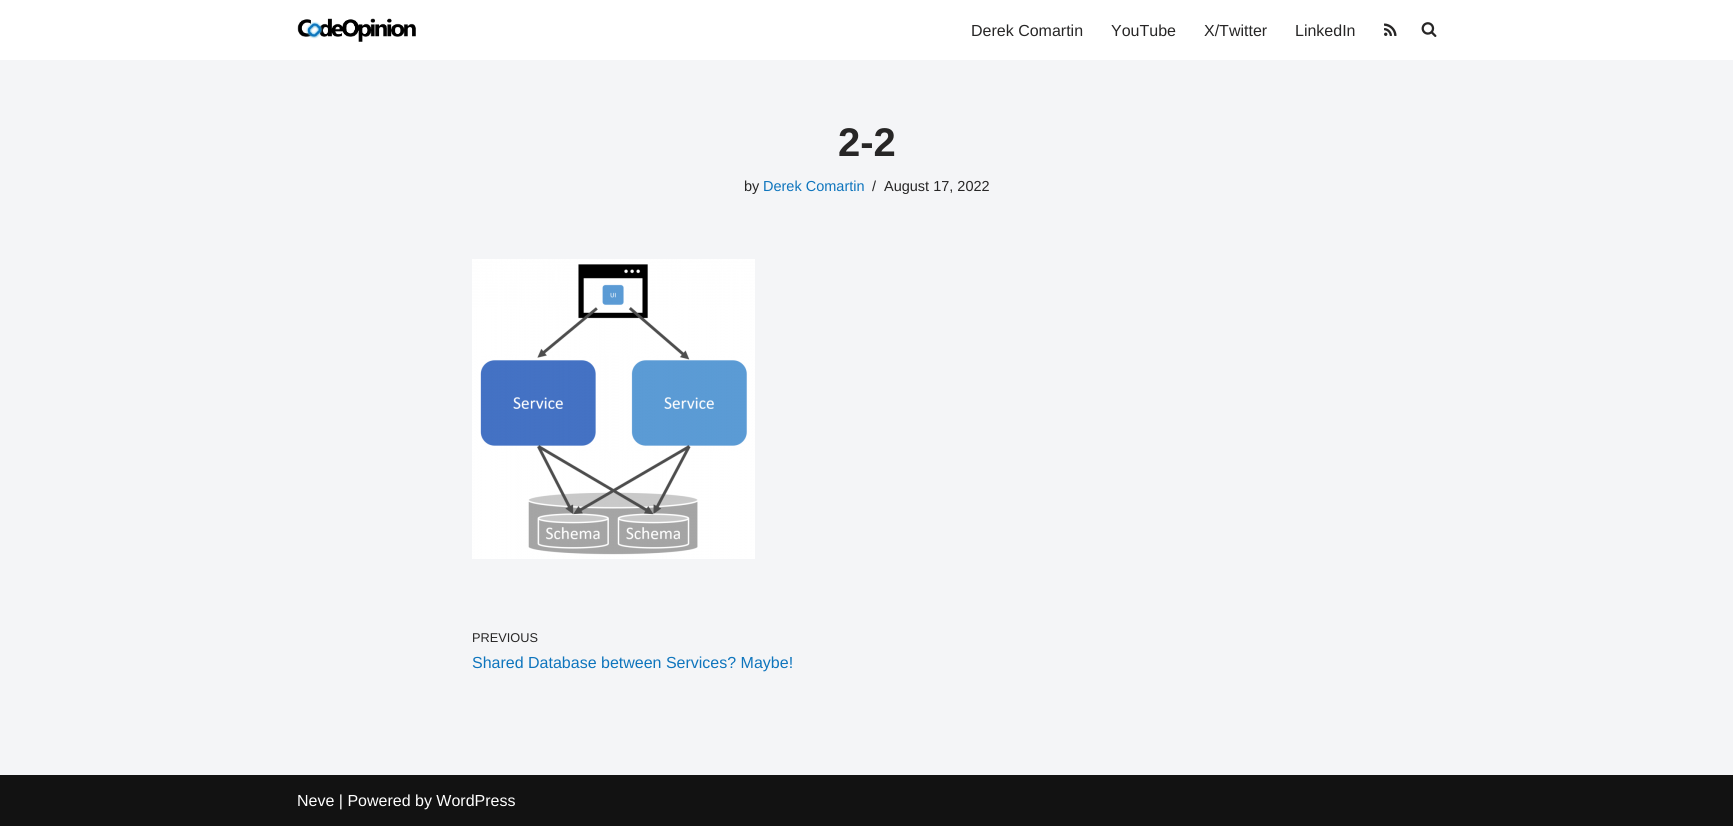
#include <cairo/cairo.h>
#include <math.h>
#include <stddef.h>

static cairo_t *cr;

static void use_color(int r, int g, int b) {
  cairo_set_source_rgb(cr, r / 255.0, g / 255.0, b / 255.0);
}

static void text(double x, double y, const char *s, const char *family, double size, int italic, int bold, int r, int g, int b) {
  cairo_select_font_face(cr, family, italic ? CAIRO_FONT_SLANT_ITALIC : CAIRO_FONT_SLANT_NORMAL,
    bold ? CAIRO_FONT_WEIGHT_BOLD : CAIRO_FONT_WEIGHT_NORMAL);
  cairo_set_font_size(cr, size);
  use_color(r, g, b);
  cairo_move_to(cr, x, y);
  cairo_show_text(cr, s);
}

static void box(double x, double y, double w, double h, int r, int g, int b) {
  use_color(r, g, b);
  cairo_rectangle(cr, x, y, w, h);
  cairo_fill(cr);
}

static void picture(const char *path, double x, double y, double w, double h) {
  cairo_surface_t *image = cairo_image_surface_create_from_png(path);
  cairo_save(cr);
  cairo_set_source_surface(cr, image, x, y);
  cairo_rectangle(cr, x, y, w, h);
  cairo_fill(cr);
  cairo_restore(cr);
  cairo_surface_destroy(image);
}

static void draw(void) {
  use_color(244, 245, 247);
  cairo_paint(cr);
  box(0, 0, 1733, 60, 255, 255, 255);
  picture("img_01.png", 297, 18, 119, 24);
  picture("img_02.png", 1384, 23, 13, 13);
  picture("img_03.png", 1421, 22, 16, 15);
  picture("img_04.png", 472, 259, 283, 300);
  box(0, 775, 1733, 51, 18, 18, 18);
  text(971, 36, "Derek Comartin", "Liberation Sans", 16, 0, 0, 39, 38, 38);
  text(1111, 36, "YouTube", "Liberation Sans", 16, 0, 0, 39, 38, 38);
  text(1204, 36, "X/Twitter", "Liberation Sans", 16, 0, 0, 39, 38, 38);
  text(1295, 36, "LinkedIn", "Liberation Sans", 16, 0, 0, 39, 38, 38);
  text(838, 156, "2-2", "Liberation Sans", 40, 0, 1, 39, 38, 38);
  text(744, 191, "by", "Liberation Sans", 14.5, 0, 0, 39, 38, 38);
  text(763, 191, "Derek Comartin", "Liberation Sans", 14.5, 0, 0, 14, 117, 189);
  text(872, 191, "/", "Liberation Sans", 14.5, 0, 0, 39, 38, 38);
  text(884, 191, "August 17, 2022", "Liberation Sans", 14.5, 0, 0, 39, 38, 38);
  text(472, 642, "PREVIOUS", "Liberation Sans", 12.75, 0, 0, 39, 38, 38);
  text(472, 668, "Shared Database between Services? Maybe!", "Liberation Sans", 16, 0, 0, 14, 117, 189);
  text(297, 806, "Neve | Powered by WordPress", "Liberation Sans", 16, 0, 0, 255, 255, 255);
}

int main(void) {
  cairo_surface_t *surface = cairo_image_surface_create(CAIRO_FORMAT_RGB24, 1733, 826);
  cr = cairo_create(surface);
  cairo_font_options_t *options = cairo_font_options_create();
  cairo_font_options_set_hint_metrics(options, CAIRO_HINT_METRICS_OFF);
  cairo_font_options_set_hint_style(options, CAIRO_HINT_STYLE_NONE);
  cairo_set_font_options(cr, options);
  cairo_set_miter_limit(cr, 4);
  draw();
  cairo_surface_write_to_png(surface, "out.png");
  cairo_font_options_destroy(options);
  cairo_destroy(cr);
  cairo_surface_destroy(surface);
  return 0;
}
